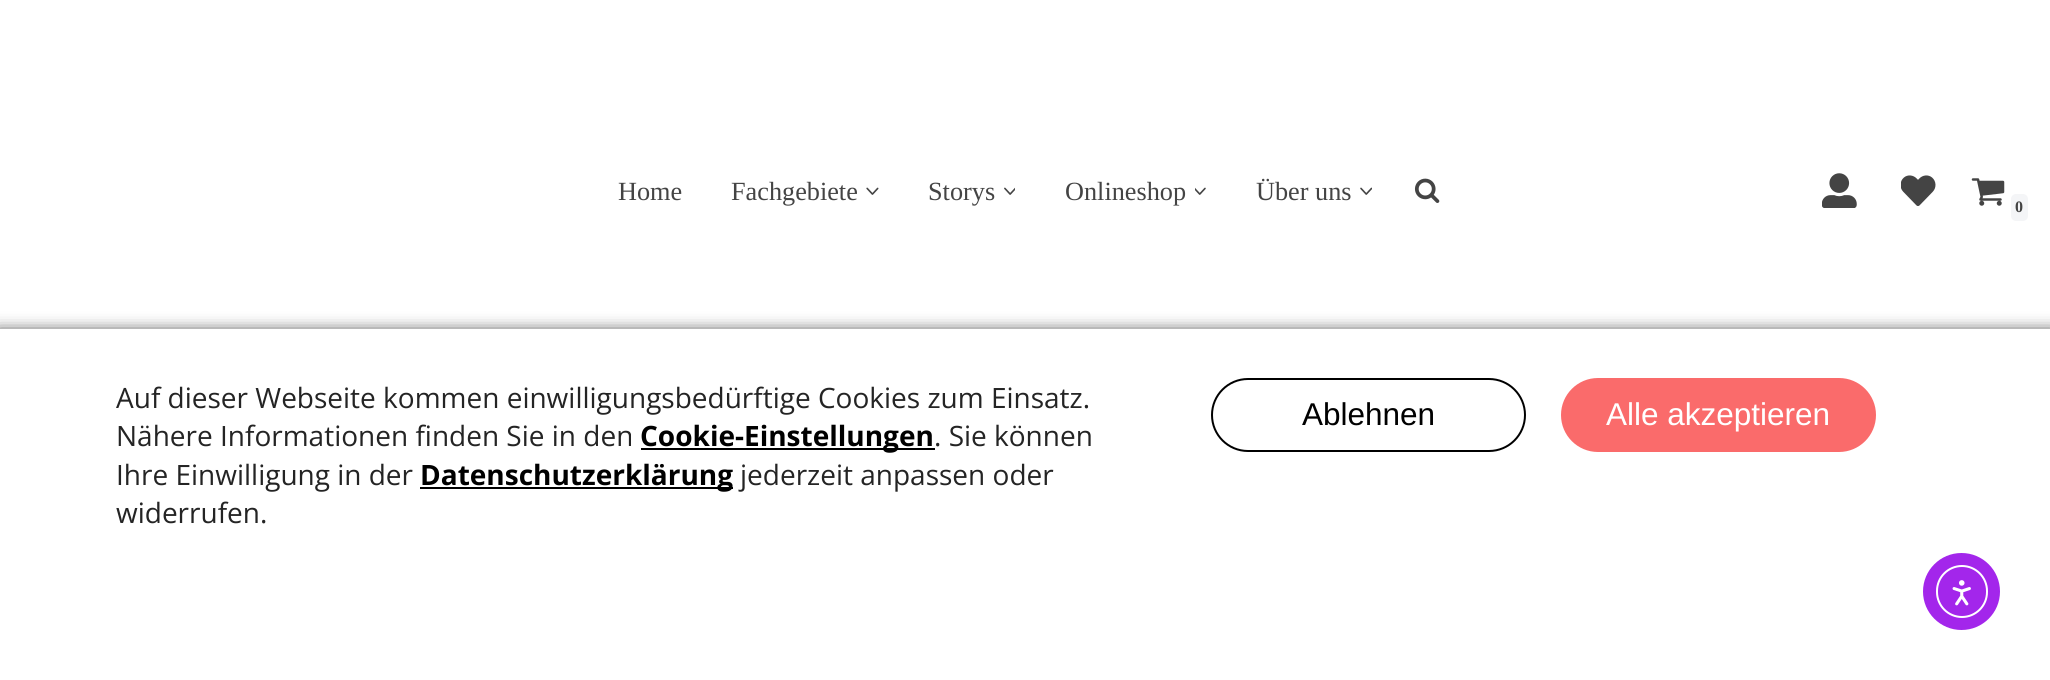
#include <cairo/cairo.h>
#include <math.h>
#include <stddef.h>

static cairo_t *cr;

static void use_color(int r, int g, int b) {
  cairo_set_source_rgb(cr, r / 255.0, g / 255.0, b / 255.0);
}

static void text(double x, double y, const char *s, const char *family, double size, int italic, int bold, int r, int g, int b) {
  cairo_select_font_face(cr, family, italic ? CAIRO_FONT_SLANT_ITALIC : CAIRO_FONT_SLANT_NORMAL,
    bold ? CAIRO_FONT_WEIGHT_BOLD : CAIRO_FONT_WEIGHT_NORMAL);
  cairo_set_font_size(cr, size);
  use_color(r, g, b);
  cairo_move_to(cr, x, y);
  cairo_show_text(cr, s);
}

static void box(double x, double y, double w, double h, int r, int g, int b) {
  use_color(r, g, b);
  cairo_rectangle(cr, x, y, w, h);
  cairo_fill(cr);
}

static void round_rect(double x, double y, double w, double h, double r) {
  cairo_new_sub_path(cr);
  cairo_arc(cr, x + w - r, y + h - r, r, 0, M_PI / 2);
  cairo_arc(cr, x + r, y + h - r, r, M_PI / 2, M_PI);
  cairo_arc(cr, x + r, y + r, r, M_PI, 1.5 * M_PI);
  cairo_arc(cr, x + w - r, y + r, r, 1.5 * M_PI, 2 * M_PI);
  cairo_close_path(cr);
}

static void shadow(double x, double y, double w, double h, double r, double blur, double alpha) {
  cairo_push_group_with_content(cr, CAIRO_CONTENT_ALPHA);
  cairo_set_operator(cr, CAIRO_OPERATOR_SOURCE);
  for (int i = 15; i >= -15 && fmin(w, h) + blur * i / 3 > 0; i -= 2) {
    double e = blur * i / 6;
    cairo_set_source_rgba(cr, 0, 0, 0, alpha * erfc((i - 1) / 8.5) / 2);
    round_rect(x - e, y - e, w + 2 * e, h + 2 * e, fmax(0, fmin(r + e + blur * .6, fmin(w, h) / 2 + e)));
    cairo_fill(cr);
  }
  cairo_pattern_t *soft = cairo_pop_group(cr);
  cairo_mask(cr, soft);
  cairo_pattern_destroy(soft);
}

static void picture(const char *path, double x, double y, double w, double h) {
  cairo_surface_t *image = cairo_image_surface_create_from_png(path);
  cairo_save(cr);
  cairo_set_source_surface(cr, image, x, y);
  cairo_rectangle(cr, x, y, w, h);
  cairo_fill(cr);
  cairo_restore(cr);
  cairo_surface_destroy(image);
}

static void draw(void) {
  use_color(255, 255, 255);
  cairo_paint(cr);
  picture("img_01.png", 866, 187, 13, 8);
  picture("img_02.png", 1004, 187, 11, 8);
  picture("img_03.png", 1195, 187, 11, 8);
  picture("img_04.png", 1360, 187, 12, 8);
  picture("img_05.png", 1414, 178, 26, 25);
  picture("img_06.png", 1822, 173, 35, 35);
  picture("img_07.png", 1901, 175, 35, 31);
  picture("img_08.png", 1971, 178, 34, 28);
  use_color(244, 245, 247);
  round_rect(2011, 194, 17, 27, 5);
  cairo_fill(cr);
  use_color(0, 0, 0);
  shadow(-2, 331, 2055, 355, 0, 8, 0.75);
  box(0, 329, 2050, 351, 255, 255, 255);
  box(641, 448, 294, 2, 0, 0, 0);
  box(420, 487, 313, 2, 0, 0, 0);
  round_rect(1212, 379, 313, 72, 36);
  cairo_stroke(cr);
  use_color(250, 107, 107);
  round_rect(1562, 379, 313, 72, 36);
  cairo_fill_preserve(cr);
  cairo_stroke(cr);
  use_color(163, 38, 235);
  cairo_arc(cr, 1961.5, 591.5, 38.5, 0, 2 * M_PI);
  cairo_fill(cr);
  round_rect(1937, 566, 50, 51, 25);
  use_color(255, 255, 255);
  cairo_stroke(cr);
  picture("img_09.png", 1952, 580, 19, 26);
  text(618, 200, "Home", "Liberation Serif", 26.25, 0, 0, 68, 68, 68);
  text(731, 200, "Fachgebiete", "Liberation Serif", 26.25, 0, 0, 68, 68, 68);
  text(928, 200, "Storys", "Liberation Serif", 26.25, 0, 0, 68, 68, 68);
  text(1065, 200, "Onlineshop", "Liberation Serif", 26.25, 0, 0, 68, 68, 68);
  text(1256, 200, "Über uns", "Liberation Serif", 26.25, 0, 0, 68, 68, 68);
  text(2015, 212, "0", "Liberation Serif", 16, 0, 1, 68, 68, 68);
  text(116, 408, "Auf dieser Webseite kommen einwilligungsbedürftige Cookies zum Einsatz.", "Open Sans", 28, 0, 0, 36, 36, 36);
  text(116, 446, "Nähere Informationen finden Sie in den", "Open Sans", 28, 0, 0, 36, 36, 36);
  text(640, 446, "Cookie-Einstellungen", "Open Sans", 28, 0, 1, 0, 0, 0);
  text(934, 446, ". Sie können", "Open Sans", 28, 0, 0, 36, 36, 36);
  text(116, 485, "Ihre Einwilligung in der", "Open Sans", 28, 0, 0, 36, 36, 36);
  text(420, 485, "Datenschutzerklärung", "Open Sans", 28, 0, 1, 0, 0, 0);
  text(740, 485, "jederzeit anpassen oder", "Open Sans", 28, 0, 0, 36, 36, 36);
  text(116, 523, "widerrufen.", "Open Sans", 28, 0, 0, 36, 36, 36);
  text(1302, 425, "Ablehnen", "Liberation Sans", 31.5, 0, 0, 0, 0, 0);
  text(1606, 425, "Alle akzeptieren", "Liberation Sans", 31.5, 0, 0, 255, 255, 255);
}

int main(void) {
  cairo_surface_t *surface = cairo_image_surface_create(CAIRO_FORMAT_RGB24, 2050, 680);
  cr = cairo_create(surface);
  cairo_font_options_t *options = cairo_font_options_create();
  cairo_font_options_set_hint_metrics(options, CAIRO_HINT_METRICS_OFF);
  cairo_font_options_set_hint_style(options, CAIRO_HINT_STYLE_NONE);
  cairo_set_font_options(cr, options);
  cairo_set_miter_limit(cr, 4);
  draw();
  cairo_surface_write_to_png(surface, "out.png");
  cairo_font_options_destroy(options);
  cairo_destroy(cr);
  cairo_surface_destroy(surface);
  return 0;
}
